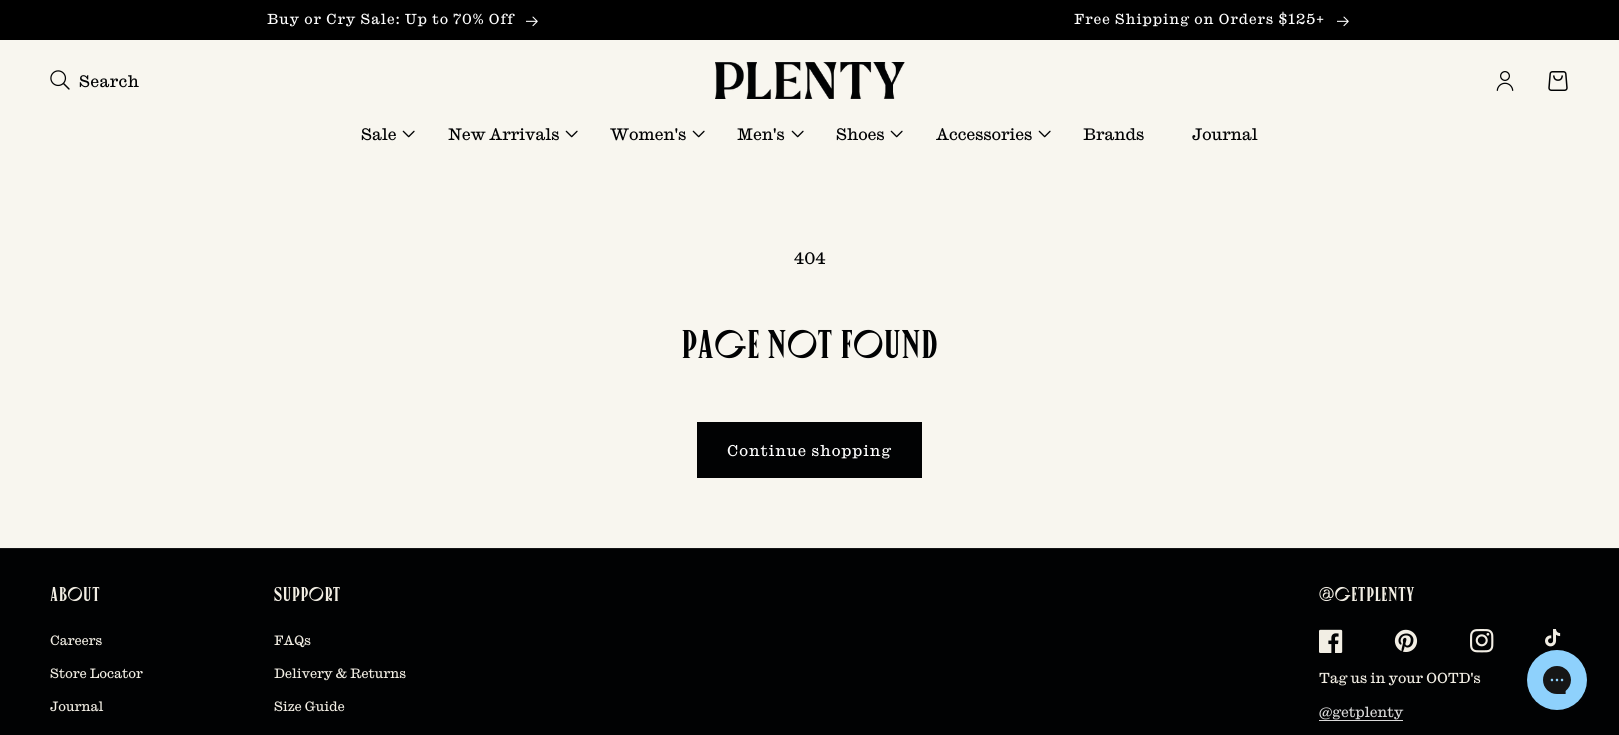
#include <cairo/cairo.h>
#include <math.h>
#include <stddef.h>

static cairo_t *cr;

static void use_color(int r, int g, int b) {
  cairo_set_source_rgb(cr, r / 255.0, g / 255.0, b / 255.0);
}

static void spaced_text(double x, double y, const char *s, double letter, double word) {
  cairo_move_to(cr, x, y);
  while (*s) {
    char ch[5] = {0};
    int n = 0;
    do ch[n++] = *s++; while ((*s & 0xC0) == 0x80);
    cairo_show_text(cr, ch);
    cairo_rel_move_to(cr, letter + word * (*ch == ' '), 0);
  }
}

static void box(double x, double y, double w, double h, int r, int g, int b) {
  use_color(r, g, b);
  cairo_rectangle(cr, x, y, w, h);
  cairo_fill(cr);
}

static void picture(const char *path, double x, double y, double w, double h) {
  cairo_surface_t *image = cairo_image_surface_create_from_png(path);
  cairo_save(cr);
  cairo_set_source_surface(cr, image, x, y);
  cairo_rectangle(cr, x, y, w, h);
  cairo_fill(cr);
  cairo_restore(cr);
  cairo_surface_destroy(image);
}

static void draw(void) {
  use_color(248, 246, 239);
  cairo_paint(cr);
  box(0, 0, 1619, 40, 0, 0, 0);
  picture("img_01.png", 267, 13, 248, 14);
  picture("img_02.png", 526, 16, 12, 11);
  picture("img_03.png", 1074, 11, 250, 16);
  picture("img_02.png", 1337, 16, 12, 11);
  picture("img_04.png", 50, 70, 20, 20);
  picture("img_05.png", 79, 75, 60, 13);
  picture("img_06.png", 715, 62, 190, 37);
  picture("img_07.png", 1496, 71, 18, 20);
  picture("img_08.png", 1548, 71, 20, 20);
  picture("img_09.png", 361, 128, 35, 13);
  picture("img_10.png", 402, 130, 13, 8);
  picture("img_11.png", 448, 128, 111, 13);
  picture("img_10.png", 565, 130, 13, 8);
  picture("img_12.png", 610, 128, 76, 13);
  picture("img_10.png", 692, 130, 13, 8);
  picture("img_13.png", 737, 128, 48, 13);
  picture("img_10.png", 791, 130, 13, 8);
  picture("img_14.png", 836, 128, 48, 13);
  picture("img_10.png", 890, 130, 13, 8);
  picture("img_15.png", 936, 128, 96, 13);
  picture("img_10.png", 1038, 130, 13, 8);
  picture("img_16.png", 1083, 128, 61, 13);
  picture("img_17.png", 1192, 128, 66, 13);
  picture("img_18.png", 794, 252, 32, 13);
  box(697, 422, 225, 56, 1, 2, 3);
  picture("img_19.png", 727, 444, 165, 15);
  box(0, 549, 1619, 186, 1, 2, 3);
  box(0, 548, 1619, 1, 21, 22, 23);
  picture("img_20.png", 50, 635, 52, 11);
  picture("img_21.png", 50, 668, 93, 11);
  picture("img_22.png", 50, 701, 54, 11);
  picture("img_23.png", 274, 635, 37, 13);
  picture("img_24.png", 274, 668, 132, 13);
  picture("img_25.png", 274, 701, 71, 11);
  picture("img_26.png", 1319, 629, 24, 24);
  picture("img_27.png", 1394, 629, 24, 23);
  picture("img_28.png", 1470, 629, 24, 24);
  picture("img_29.png", 1545, 629, 16, 18);
  picture("img_30.png", 1319, 672, 162, 14);
  picture("img_31.png", 1319, 706, 85, 14);
  box(1319, 720, 84, 1, 217, 217, 217);
  picture("img_32.png", 1527, 650, 60, 60);
  cairo_select_font_face(cr, "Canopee", CAIRO_FONT_SLANT_NORMAL, CAIRO_FONT_WEIGHT_NORMAL);
  cairo_set_font_size(cr, 40);
  use_color(1, 2, 3);
  spaced_text(681, 358, "Page not found", 0.6, 0);
  cairo_set_font_size(cr, 20);
  use_color(242, 238, 228);
  spaced_text(50, 601, "About", 0.6, 0);
  spaced_text(274, 601, "Support", 0.6, 0);
  spaced_text(1319, 601, "@GetPlenty", 0.6, 0);
}

int main(void) {
  cairo_surface_t *surface = cairo_image_surface_create(CAIRO_FORMAT_RGB24, 1619, 735);
  cr = cairo_create(surface);
  cairo_font_options_t *options = cairo_font_options_create();
  cairo_font_options_set_hint_metrics(options, CAIRO_HINT_METRICS_OFF);
  cairo_font_options_set_hint_style(options, CAIRO_HINT_STYLE_NONE);
  cairo_set_font_options(cr, options);
  cairo_set_miter_limit(cr, 4);
  draw();
  cairo_surface_write_to_png(surface, "out.png");
  cairo_font_options_destroy(options);
  cairo_destroy(cr);
  cairo_surface_destroy(surface);
  return 0;
}
